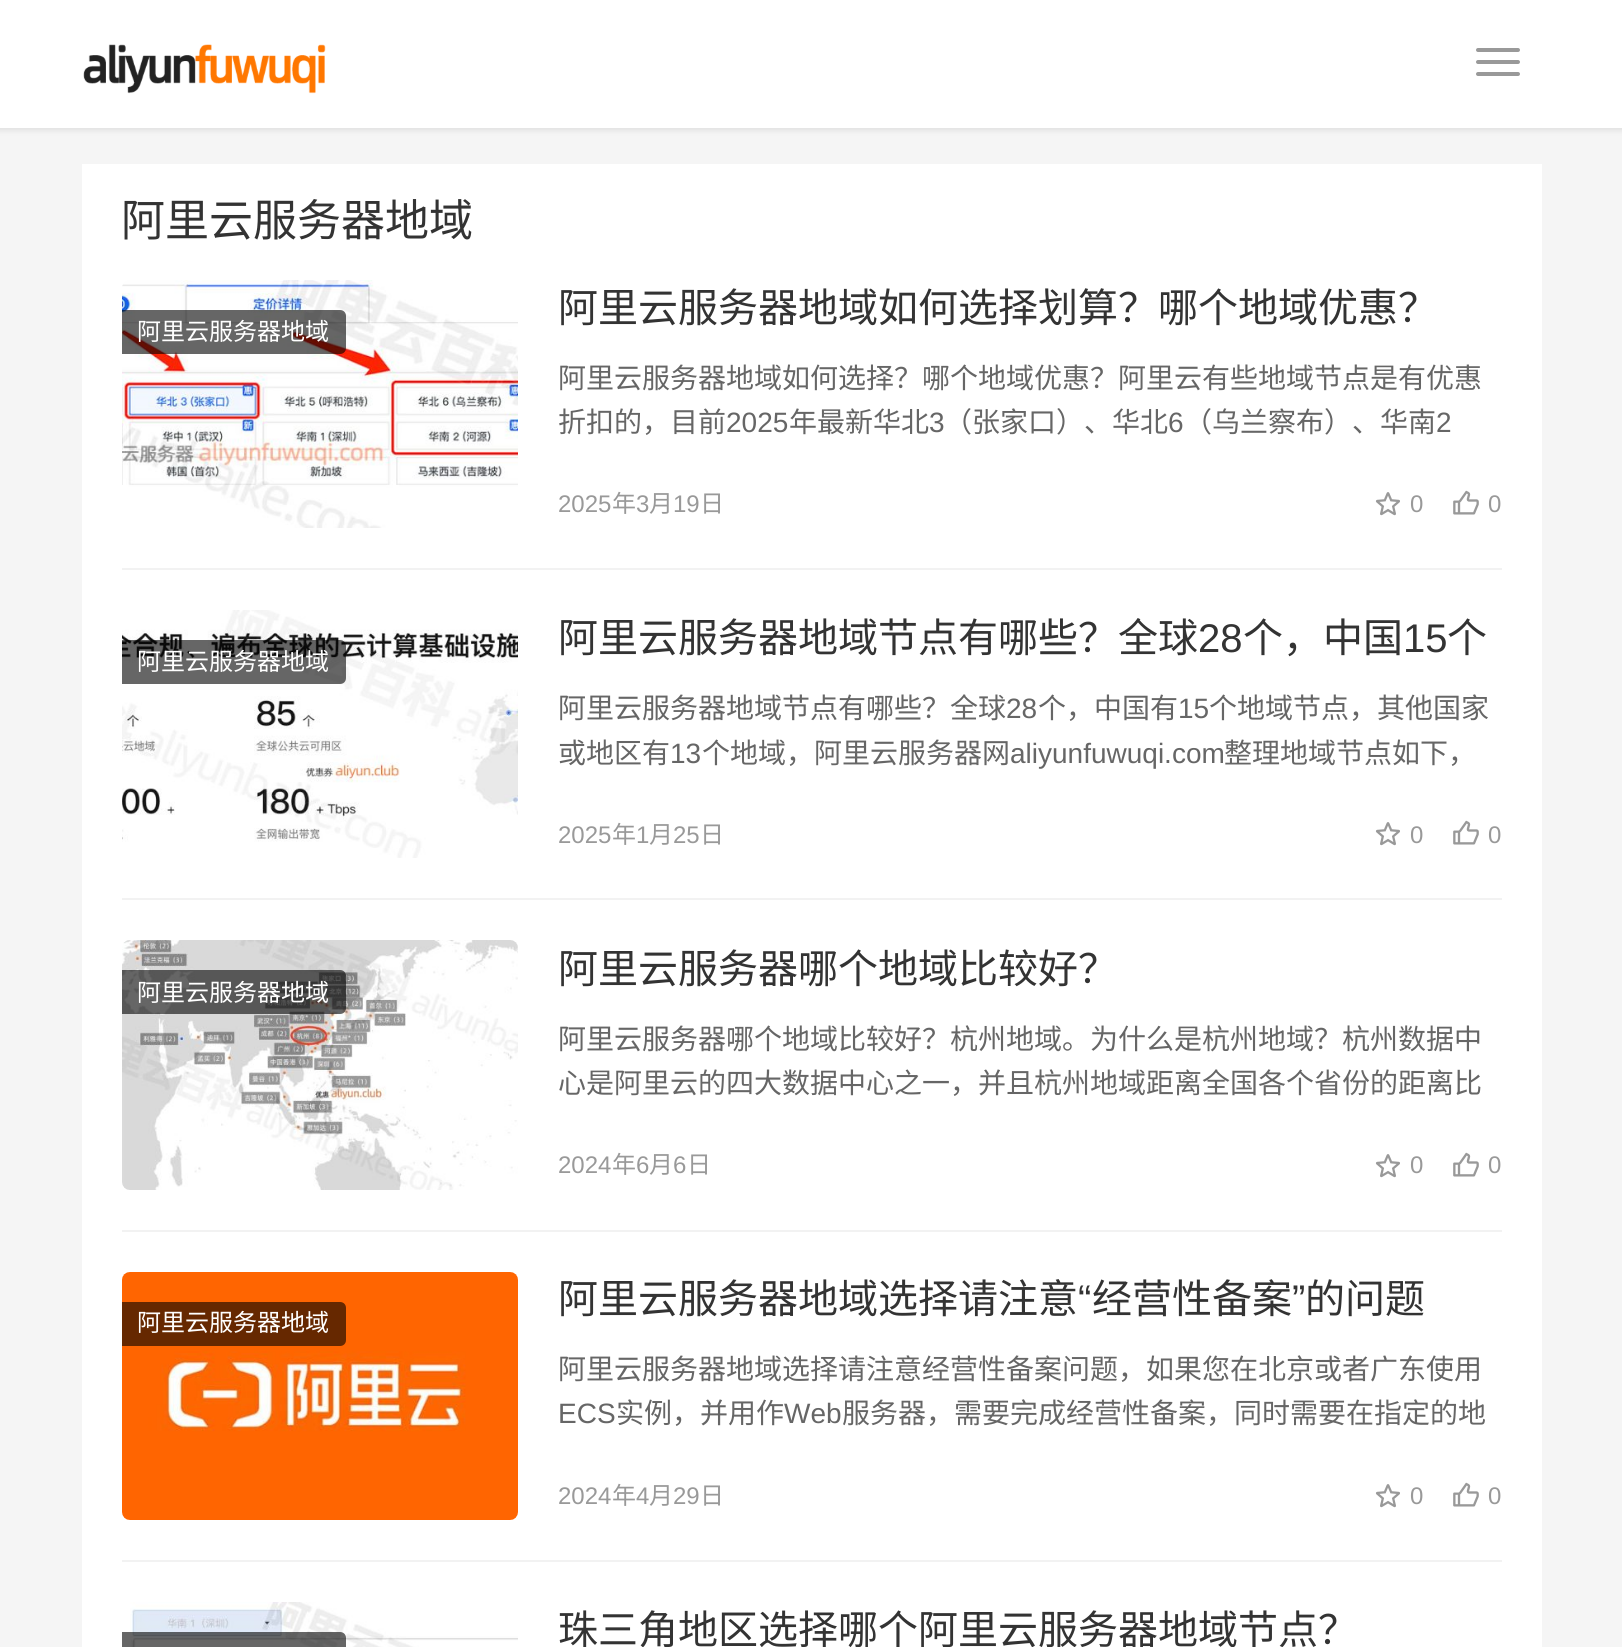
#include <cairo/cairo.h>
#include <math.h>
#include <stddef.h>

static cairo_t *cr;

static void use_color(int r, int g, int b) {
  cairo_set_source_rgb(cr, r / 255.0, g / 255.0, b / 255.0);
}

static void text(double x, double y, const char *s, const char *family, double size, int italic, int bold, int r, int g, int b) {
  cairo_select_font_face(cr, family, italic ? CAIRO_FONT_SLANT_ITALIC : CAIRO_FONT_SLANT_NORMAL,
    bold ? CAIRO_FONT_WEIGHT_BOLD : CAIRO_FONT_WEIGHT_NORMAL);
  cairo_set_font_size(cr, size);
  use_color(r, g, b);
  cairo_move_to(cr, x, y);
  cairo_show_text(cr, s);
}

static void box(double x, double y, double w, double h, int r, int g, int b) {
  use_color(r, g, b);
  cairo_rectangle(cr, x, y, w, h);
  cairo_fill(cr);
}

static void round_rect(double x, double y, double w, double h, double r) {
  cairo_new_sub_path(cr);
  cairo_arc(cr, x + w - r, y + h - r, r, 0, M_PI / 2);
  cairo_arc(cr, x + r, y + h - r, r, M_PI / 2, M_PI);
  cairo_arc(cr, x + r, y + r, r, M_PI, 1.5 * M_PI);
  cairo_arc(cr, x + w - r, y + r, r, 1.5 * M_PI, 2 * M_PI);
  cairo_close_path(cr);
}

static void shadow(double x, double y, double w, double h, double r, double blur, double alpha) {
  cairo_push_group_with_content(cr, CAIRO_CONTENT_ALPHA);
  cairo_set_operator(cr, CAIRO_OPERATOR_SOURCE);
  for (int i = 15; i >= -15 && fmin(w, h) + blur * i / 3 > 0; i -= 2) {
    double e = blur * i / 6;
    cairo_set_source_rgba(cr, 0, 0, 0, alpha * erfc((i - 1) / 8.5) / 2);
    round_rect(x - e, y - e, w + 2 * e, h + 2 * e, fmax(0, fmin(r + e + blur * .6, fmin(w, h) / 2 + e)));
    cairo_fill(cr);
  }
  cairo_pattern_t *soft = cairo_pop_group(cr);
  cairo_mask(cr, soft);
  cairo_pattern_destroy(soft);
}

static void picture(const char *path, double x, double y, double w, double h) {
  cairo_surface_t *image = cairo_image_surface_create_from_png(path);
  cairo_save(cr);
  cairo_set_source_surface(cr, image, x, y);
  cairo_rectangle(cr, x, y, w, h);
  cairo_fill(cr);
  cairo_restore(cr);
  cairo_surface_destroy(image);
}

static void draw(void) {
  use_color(245, 245, 245);
  cairo_paint(cr);
  use_color(0, 0, 0);
  shadow(-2, -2, 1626, 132, 0, 3, 0.1);
  box(0, 0, 1622, 128, 255, 255, 255);
  picture("img_01.png", 83, 44, 243, 50);
  use_color(153, 153, 153);
  round_rect(1476, 48, 44, 4, 2);
  cairo_fill(cr);
  round_rect(1476, 60, 44, 4, 2);
  cairo_fill(cr);
  round_rect(1476, 72, 44, 4, 2);
  cairo_fill(cr);
  box(82, 164, 1460, 1483, 255, 255, 255);
  box(122, 568, 1380, 2, 242, 242, 242);
  picture("img_02.png", 122, 280, 396, 248);
  cairo_set_source_rgba(cr, 0, 0, 0, 0.6);
  cairo_new_path(cr);
  cairo_move_to(cr, 122, 310);
  cairo_line_to(cr, 340, 310);
  cairo_curve_to(cr, 343.5, 310, 346, 312.5, 346, 316);
  cairo_line_to(cr, 346, 348);
  cairo_curve_to(cr, 346, 351.5, 343.5, 354, 340, 354);
  cairo_line_to(cr, 122, 354);
  cairo_close_path(cr);
  cairo_fill(cr);
  picture("img_03.png", 1375, 492, 25, 24);
  picture("img_04.png", 1453, 490, 26, 25);
  box(122, 898, 1380, 2, 242, 242, 242);
  picture("img_05.png", 122, 610, 396, 248);
  cairo_set_source_rgba(cr, 0, 0, 0, 0.6);
  cairo_new_path(cr);
  cairo_move_to(cr, 122, 640);
  cairo_line_to(cr, 340, 640);
  cairo_curve_to(cr, 343.5, 640, 346, 642.5, 346, 646);
  cairo_line_to(cr, 346, 678);
  cairo_curve_to(cr, 346, 681.5, 343.5, 684, 340, 684);
  cairo_line_to(cr, 122, 684);
  cairo_close_path(cr);
  cairo_fill(cr);
  picture("img_03.png", 1375, 822, 25, 24);
  picture("img_04.png", 1453, 820, 26, 25);
  box(122, 1230, 1380, 2, 242, 242, 242);
  picture("img_06.png", 122, 940, 396, 250);
  cairo_set_source_rgba(cr, 0, 0, 0, 0.6);
  cairo_new_path(cr);
  cairo_move_to(cr, 122, 970);
  cairo_line_to(cr, 340, 970);
  cairo_curve_to(cr, 343.5, 970, 346, 972.5, 346, 976);
  cairo_line_to(cr, 346, 1008);
  cairo_curve_to(cr, 346, 1011.5, 343.5, 1014, 340, 1014);
  cairo_line_to(cr, 122, 1014);
  cairo_close_path(cr);
  cairo_fill(cr);
  picture("img_03.png", 1375, 1154, 25, 24);
  picture("img_04.png", 1453, 1152, 26, 25);
  box(122, 1560, 1380, 2, 242, 242, 242);
  picture("img_07.png", 122, 1272, 396, 248);
  use_color(102, 40, 0);
  cairo_new_path(cr);
  cairo_move_to(cr, 122, 1302);
  cairo_line_to(cr, 340, 1302);
  cairo_curve_to(cr, 343.5, 1302, 346, 1304.5, 346, 1308);
  cairo_line_to(cr, 346, 1340);
  cairo_curve_to(cr, 346, 1343.5, 343.5, 1346, 340, 1346);
  cairo_line_to(cr, 122, 1346);
  cairo_close_path(cr);
  cairo_fill(cr);
  picture("img_03.png", 1375, 1484, 25, 24);
  picture("img_04.png", 1453, 1482, 26, 25);
  picture("img_08.png", 130, 1602, 388, 45);
  cairo_set_source_rgba(cr, 0, 0, 0, 0.6);
  cairo_new_path(cr);
  cairo_move_to(cr, 122, 1632);
  cairo_line_to(cr, 340, 1632);
  cairo_curve_to(cr, 343.5, 1632, 346, 1634.5, 346, 1638);
  cairo_line_to(cr, 346, 1647);
  cairo_curve_to(cr, 346, 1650.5, 343.5, 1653, 340, 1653);
  cairo_line_to(cr, 122, 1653);
  cairo_close_path(cr);
  cairo_fill(cr);
  text(121, 236, "阿里云服务器地域", "Noto Sans CJK SC", 44, 0, 0, 51, 51, 51);
  text(137, 340, "阿里云服务器地域", "Noto Sans CJK SC", 24, 0, 0, 255, 255, 255);
  text(558, 322, "阿里云服务器地域如何选择划算？哪个地域优惠？", "Noto Sans CJK SC", 40, 0, 0, 51, 51, 51);
  text(558, 388, "阿里云服务器地域如何选择？哪个地域优惠？阿里云有些地域节点是有优惠", "Noto Sans CJK SC", 28, 0, 0, 102, 102, 102);
  text(558, 432, "折扣的，目前", "Noto Sans CJK SC", 28, 0, 0, 102, 102, 102);
  text(726, 432, "2025", "Liberation Sans", 28, 0, 0, 102, 102, 102);
  text(789, 432, "年最新华北", "Noto Sans CJK SC", 28, 0, 0, 102, 102, 102);
  text(929, 432, "3", "Liberation Sans", 28, 0, 0, 102, 102, 102);
  text(944, 432, "（张家口）、华北", "Noto Sans CJK SC", 28, 0, 0, 102, 102, 102);
  text(1168, 432, "6", "Liberation Sans", 28, 0, 0, 102, 102, 102);
  text(1184, 432, "（乌兰察布）、华南", "Noto Sans CJK SC", 28, 0, 0, 102, 102, 102);
  text(1436, 432, "2", "Liberation Sans", 28, 0, 0, 102, 102, 102);
  text(558, 512, "2025", "Liberation Sans", 24, 0, 0, 153, 153, 153);
  text(612, 512, "年", "Noto Sans CJK SC", 24, 0, 0, 153, 153, 153);
  text(636, 512, "3", "Liberation Sans", 24, 0, 0, 153, 153, 153);
  text(649, 512, "月", "Noto Sans CJK SC", 24, 0, 0, 153, 153, 153);
  text(673, 512, "19", "Liberation Sans", 24, 0, 0, 153, 153, 153);
  text(700, 512, "日", "Noto Sans CJK SC", 24, 0, 0, 153, 153, 153);
  text(1410, 512, "0", "Liberation Sans", 24, 0, 0, 153, 153, 153);
  text(1488, 512, "0", "Liberation Sans", 24, 0, 0, 153, 153, 153);
  text(137, 670, "阿里云服务器地域", "Noto Sans CJK SC", 24, 0, 0, 255, 255, 255);
  text(558, 652, "阿里云服务器地域节点有哪些？全球", "Noto Sans CJK SC", 40, 0, 0, 51, 51, 51);
  text(1198, 652, "28", "Liberation Sans", 40, 0, 0, 51, 51, 51);
  text(1243, 652, "个，中国", "Noto Sans CJK SC", 40, 0, 0, 51, 51, 51);
  text(1403, 652, "15", "Liberation Sans", 40, 0, 0, 51, 51, 51);
  text(1447, 652, "个", "Noto Sans CJK SC", 40, 0, 0, 51, 51, 51);
  text(558, 718, "阿里云服务器地域节点有哪些？全球", "Noto Sans CJK SC", 28, 0, 0, 102, 102, 102);
  text(1006, 718, "28", "Liberation Sans", 28, 0, 0, 102, 102, 102);
  text(1038, 718, "个，中国有", "Noto Sans CJK SC", 28, 0, 0, 102, 102, 102);
  text(1178, 718, "15", "Liberation Sans", 28, 0, 0, 102, 102, 102);
  text(1209, 718, "个地域节点，其他国家", "Noto Sans CJK SC", 28, 0, 0, 102, 102, 102);
  text(558, 763, "或地区有", "Noto Sans CJK SC", 28, 0, 0, 102, 102, 102);
  text(670, 763, "13", "Liberation Sans", 28, 0, 0, 102, 102, 102);
  text(702, 763, "个地域，阿里云服务器网", "Noto Sans CJK SC", 28, 0, 0, 102, 102, 102);
  text(1010, 763, "aliyunfuwuqi.com", "Liberation Sans", 28, 0, 0, 102, 102, 102);
  text(1224, 763, "整理地域节点如下，", "Noto Sans CJK SC", 28, 0, 0, 102, 102, 102);
  text(558, 843, "2025", "Liberation Sans", 24, 0, 0, 153, 153, 153);
  text(612, 843, "年", "Noto Sans CJK SC", 24, 0, 0, 153, 153, 153);
  text(636, 843, "1", "Liberation Sans", 24, 0, 0, 153, 153, 153);
  text(649, 843, "月", "Noto Sans CJK SC", 24, 0, 0, 153, 153, 153);
  text(673, 843, "25", "Liberation Sans", 24, 0, 0, 153, 153, 153);
  text(700, 843, "日", "Noto Sans CJK SC", 24, 0, 0, 153, 153, 153);
  text(1410, 843, "0", "Liberation Sans", 24, 0, 0, 153, 153, 153);
  text(1488, 843, "0", "Liberation Sans", 24, 0, 0, 153, 153, 153);
  text(137, 1001, "阿里云服务器地域", "Noto Sans CJK SC", 24, 0, 0, 255, 255, 255);
  text(558, 983, "阿里云服务器哪个地域比较好？", "Noto Sans CJK SC", 40, 0, 0, 51, 51, 51);
  text(558, 1049, "阿里云服务器哪个地域比较好？杭州地域。为什么是杭州地域？杭州数据中", "Noto Sans CJK SC", 28, 0, 0, 102, 102, 102);
  text(558, 1093, "心是阿里云的四大数据中心之一，并且杭州地域距离全国各个省份的距离比", "Noto Sans CJK SC", 28, 0, 0, 102, 102, 102);
  text(558, 1173, "2024", "Liberation Sans", 24, 0, 0, 153, 153, 153);
  text(612, 1173, "年", "Noto Sans CJK SC", 24, 0, 0, 153, 153, 153);
  text(636, 1173, "6", "Liberation Sans", 24, 0, 0, 153, 153, 153);
  text(649, 1173, "月", "Noto Sans CJK SC", 24, 0, 0, 153, 153, 153);
  text(673, 1173, "6", "Liberation Sans", 24, 0, 0, 153, 153, 153);
  text(687, 1173, "日", "Noto Sans CJK SC", 24, 0, 0, 153, 153, 153);
  text(1410, 1173, "0", "Liberation Sans", 24, 0, 0, 153, 153, 153);
  text(1488, 1173, "0", "Liberation Sans", 24, 0, 0, 153, 153, 153);
  text(137, 1331, "阿里云服务器地域", "Noto Sans CJK SC", 24, 0, 0, 255, 255, 255);
  text(558, 1313, "阿里云服务器地域选择请注意", "Noto Sans CJK SC", 40, 0, 0, 51, 51, 51);
  text(1078, 1313, "“", "Liberation Sans", 40, 0, 0, 51, 51, 51);
  text(1092, 1313, "经营性备案", "Noto Sans CJK SC", 40, 0, 0, 51, 51, 51);
  text(1292, 1313, "”", "Liberation Sans", 40, 0, 0, 51, 51, 51);
  text(1305, 1313, "的问题", "Noto Sans CJK SC", 40, 0, 0, 51, 51, 51);
  text(558, 1379, "阿里云服务器地域选择请注意经营性备案问题，如果您在北京或者广东使用", "Noto Sans CJK SC", 28, 0, 0, 102, 102, 102);
  text(558, 1423, "ECS", "Liberation Sans", 28, 0, 0, 102, 102, 102);
  text(616, 1423, "实例，并用作", "Noto Sans CJK SC", 28, 0, 0, 102, 102, 102);
  text(784, 1423, "Web", "Liberation Sans", 28, 0, 0, 102, 102, 102);
  text(842, 1423, "服务器，需要完成经营性备案，同时需要在指定的地", "Noto Sans CJK SC", 28, 0, 0, 102, 102, 102);
  text(558, 1504, "2024", "Liberation Sans", 24, 0, 0, 153, 153, 153);
  text(612, 1504, "年", "Noto Sans CJK SC", 24, 0, 0, 153, 153, 153);
  text(636, 1504, "4", "Liberation Sans", 24, 0, 0, 153, 153, 153);
  text(649, 1504, "月", "Noto Sans CJK SC", 24, 0, 0, 153, 153, 153);
  text(673, 1504, "29", "Liberation Sans", 24, 0, 0, 153, 153, 153);
  text(700, 1504, "日", "Noto Sans CJK SC", 24, 0, 0, 153, 153, 153);
  text(1410, 1504, "0", "Liberation Sans", 24, 0, 0, 153, 153, 153);
  text(1488, 1504, "0", "Liberation Sans", 24, 0, 0, 153, 153, 153);
  text(558, 1644, "珠三角地区选择哪个阿里云服务器地域节点？", "Noto Sans CJK SC", 40, 0, 0, 51, 51, 51);
}

int main(void) {
  cairo_surface_t *surface = cairo_image_surface_create(CAIRO_FORMAT_RGB24, 1622, 1647);
  cr = cairo_create(surface);
  cairo_font_options_t *options = cairo_font_options_create();
  cairo_font_options_set_hint_metrics(options, CAIRO_HINT_METRICS_OFF);
  cairo_font_options_set_hint_style(options, CAIRO_HINT_STYLE_NONE);
  cairo_set_font_options(cr, options);
  cairo_set_miter_limit(cr, 4);
  draw();
  cairo_surface_write_to_png(surface, "out.png");
  cairo_font_options_destroy(options);
  cairo_destroy(cr);
  cairo_surface_destroy(surface);
  return 0;
}
